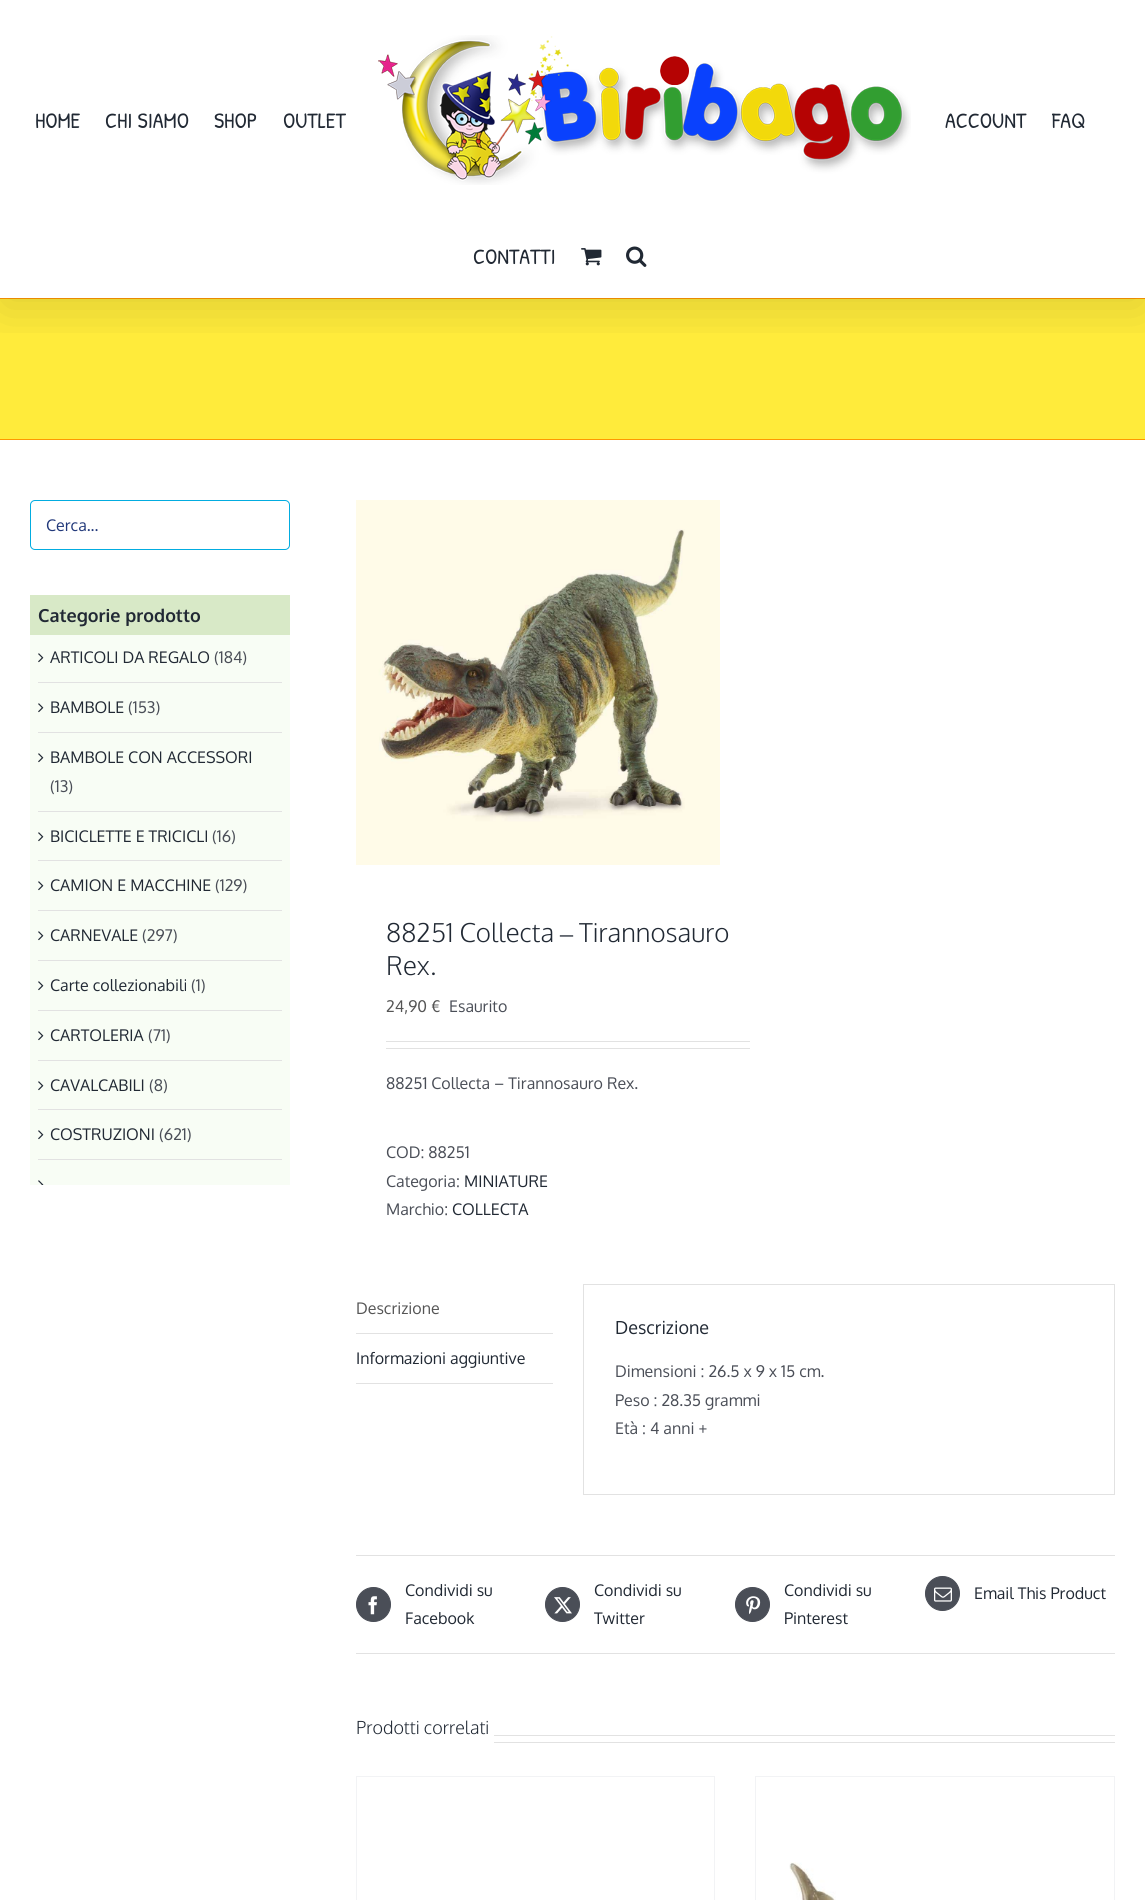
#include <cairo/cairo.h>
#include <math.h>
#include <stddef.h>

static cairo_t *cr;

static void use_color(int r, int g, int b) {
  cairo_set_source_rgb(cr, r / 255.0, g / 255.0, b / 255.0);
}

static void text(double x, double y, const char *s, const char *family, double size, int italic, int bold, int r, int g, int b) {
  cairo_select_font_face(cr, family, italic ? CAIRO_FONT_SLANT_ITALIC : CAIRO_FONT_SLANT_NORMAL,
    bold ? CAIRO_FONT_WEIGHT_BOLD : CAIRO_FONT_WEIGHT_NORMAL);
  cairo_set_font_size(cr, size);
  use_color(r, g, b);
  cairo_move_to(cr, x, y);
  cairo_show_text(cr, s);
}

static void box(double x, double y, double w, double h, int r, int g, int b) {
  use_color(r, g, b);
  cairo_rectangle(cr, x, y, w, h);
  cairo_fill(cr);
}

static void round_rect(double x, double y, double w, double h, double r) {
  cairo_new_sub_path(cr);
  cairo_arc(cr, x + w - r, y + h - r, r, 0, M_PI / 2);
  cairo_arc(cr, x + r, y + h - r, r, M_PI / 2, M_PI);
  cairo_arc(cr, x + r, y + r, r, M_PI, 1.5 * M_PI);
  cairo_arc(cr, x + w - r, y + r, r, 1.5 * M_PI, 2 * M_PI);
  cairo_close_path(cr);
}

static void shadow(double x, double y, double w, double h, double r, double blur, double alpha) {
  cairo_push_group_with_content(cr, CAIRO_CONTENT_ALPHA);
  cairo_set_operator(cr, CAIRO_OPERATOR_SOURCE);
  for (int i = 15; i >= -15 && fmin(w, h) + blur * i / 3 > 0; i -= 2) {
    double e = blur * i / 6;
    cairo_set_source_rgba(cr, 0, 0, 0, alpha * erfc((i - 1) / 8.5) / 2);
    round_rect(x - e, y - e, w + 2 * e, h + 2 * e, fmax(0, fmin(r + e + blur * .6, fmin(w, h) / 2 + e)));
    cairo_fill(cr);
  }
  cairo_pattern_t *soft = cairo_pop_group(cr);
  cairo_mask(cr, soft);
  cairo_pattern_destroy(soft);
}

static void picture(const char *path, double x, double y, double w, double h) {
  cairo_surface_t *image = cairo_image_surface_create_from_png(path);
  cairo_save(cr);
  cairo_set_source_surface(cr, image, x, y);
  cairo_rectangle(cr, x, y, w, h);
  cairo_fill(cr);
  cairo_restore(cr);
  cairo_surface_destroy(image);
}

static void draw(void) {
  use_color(255, 255, 255);
  cairo_paint(cr);
  box(0, 299, 1145, 140, 255, 235, 59);
  box(0, 298, 1145, 1, 255, 152, 0);
  cairo_save(cr);
  cairo_rectangle(cr, 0, 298, 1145, 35);
  cairo_clip(cr);
  use_color(0, 0, 0);
  shadow(2, 12, 1141, 294, 0, 25, 0.14);
  cairo_restore(cr);
  picture("img_01.png", 378, 35, 533, 150);
  picture("img_02.png", 581, 248, 21, 18);
  picture("img_03.png", 626, 246, 21, 21);
  box(0, 439, 1145, 1, 255, 152, 0);
  round_rect(30.5, 500.5, 259, 49, 4.5);
  use_color(2, 172, 224);
  cairo_set_line_width(cr, 1);
  cairo_stroke(cr);
  box(30, 595, 260, 40, 216, 233, 199);
  box(30, 635, 260, 550, 248, 253, 245);
  box(38, 682, 244, 1, 226, 226, 226);
  picture("img_04.png", 38, 653, 6, 10);
  box(38, 732, 244, 1, 226, 226, 226);
  picture("img_04.png", 38, 703, 6, 10);
  box(38, 811, 244, 1, 226, 226, 226);
  picture("img_04.png", 38, 753, 6, 10);
  box(38, 860, 244, 1, 226, 226, 226);
  picture("img_04.png", 38, 832, 6, 10);
  box(38, 910, 244, 1, 226, 226, 226);
  picture("img_04.png", 38, 881, 6, 10);
  box(38, 960, 244, 1, 226, 226, 226);
  picture("img_04.png", 38, 931, 6, 10);
  box(38, 1010, 244, 1, 226, 226, 226);
  picture("img_04.png", 38, 981, 6, 10);
  box(38, 1060, 244, 1, 226, 226, 226);
  picture("img_04.png", 38, 1031, 6, 10);
  box(38, 1109, 244, 1, 226, 226, 226);
  picture("img_04.png", 38, 1081, 6, 10);
  box(38, 1159, 244, 1, 226, 226, 226);
  picture("img_04.png", 38, 1130, 6, 10);
  picture("img_05.png", 38, 1180, 6, 5);
  picture("img_06.png", 356, 500, 364, 365);
  box(386, 1041, 364, 1, 226, 226, 226);
  box(386, 1048, 364, 1, 226, 226, 226);
  box(356, 1333, 197, 1, 226, 226, 226);
  box(356, 1383, 197, 1, 226, 226, 226);
  cairo_rectangle(cr, 583.5, 1284.5, 531, 210);
  cairo_stroke(cr);
  box(356, 1555, 759, 1, 226, 226, 226);
  box(356, 1653, 759, 1, 226, 226, 226);
  use_color(74, 78, 87);
  cairo_arc(cr, 373.5, 1604.5, 17, 0, 2 * M_PI);
  cairo_fill_preserve(cr);
  cairo_stroke(cr);
  picture("img_07.png", 368, 1596, 9, 19);
  cairo_arc(cr, 562.5, 1604.5, 17, 0, 2 * M_PI);
  cairo_fill_preserve(cr);
  cairo_stroke(cr);
  picture("img_08.png", 554, 1597, 18, 17);
  cairo_arc(cr, 752.5, 1604.5, 17, 0, 2 * M_PI);
  cairo_fill_preserve(cr);
  cairo_stroke(cr);
  picture("img_09.png", 746, 1596, 15, 19);
  cairo_arc(cr, 942.5, 1593.5, 17, 0, 2 * M_PI);
  cairo_fill_preserve(cr);
  cairo_stroke(cr);
  picture("img_10.png", 934, 1587, 18, 15);
  box(494, 1735, 621, 1, 226, 226, 226);
  box(494, 1742, 621, 1, 226, 226, 226);
  box(356, 1776, 359, 1, 242, 243, 245);
  box(714, 1776, 1, 124, 242, 243, 245);
  box(356, 1776, 1, 124, 242, 243, 245);
  box(755, 1776, 360, 1, 242, 243, 245);
  box(1114, 1776, 1, 124, 242, 243, 245);
  box(755, 1776, 1, 124, 242, 243, 245);
  picture("img_11.png", 789, 1862, 47, 38);
  text(35, 128, "HOME", "Patrick Hand", 22, 0, 0, 33, 41, 52);
  text(105, 128, "CHI SIAMO", "Patrick Hand", 22, 0, 0, 33, 41, 52);
  text(214, 128, "SHOP", "Patrick Hand", 22, 0, 0, 33, 41, 52);
  text(283, 128, "OUTLET", "Patrick Hand", 22, 0, 0, 33, 41, 52);
  text(945, 128, "ACCOUNT", "Patrick Hand", 22, 0, 0, 33, 41, 52);
  text(1052, 128, "FAQ", "Patrick Hand", 22, 0, 0, 33, 41, 52);
  text(473, 264, "CONTATTI", "Patrick Hand", 22, 0, 0, 33, 41, 52);
  text(46, 531, "Cerca...", "Oxygen", 16, 0, 0, 33, 56, 122);
  text(38, 622, "Categorie prodotto", "Oxygen", 18, 0, 1, 33, 41, 52);
  text(50, 663, "ARTICOLI DA REGALO", "Oxygen", 16, 0, 0, 33, 41, 52);
  text(214, 663, "(184)", "Oxygen", 16, 0, 0, 74, 78, 87);
  text(50, 713, "BAMBOLE", "Oxygen", 16, 0, 0, 33, 41, 52);
  text(128, 713, "(153)", "Oxygen", 16, 0, 0, 74, 78, 87);
  text(50, 763, "BAMBOLE CON ACCESSORI", "Oxygen", 16, 0, 0, 33, 41, 52);
  text(50, 792, "(13)", "Oxygen", 16, 0, 0, 74, 78, 87);
  text(50, 842, "BICICLETTE E TRICICLI", "Oxygen", 16, 0, 0, 33, 41, 52);
  text(212, 842, "(16)", "Oxygen", 16, 0, 0, 74, 78, 87);
  text(50, 891, "CAMION E MACCHINE", "Oxygen", 16, 0, 0, 33, 41, 52);
  text(215, 891, "(129)", "Oxygen", 16, 0, 0, 74, 78, 87);
  text(50, 941, "CARNEVALE", "Oxygen", 16, 0, 0, 33, 41, 52);
  text(142, 941, "(297)", "Oxygen", 16, 0, 0, 74, 78, 87);
  text(50, 991, "Carte collezionabili", "Oxygen", 16, 0, 0, 33, 41, 52);
  text(191, 991, "(1)", "Oxygen", 16, 0, 0, 74, 78, 87);
  text(50, 1041, "CARTOLERIA", "Oxygen", 16, 0, 0, 33, 41, 52);
  text(148, 1041, "(71)", "Oxygen", 16, 0, 0, 74, 78, 87);
  text(50, 1091, "CAVALCABILI", "Oxygen", 16, 0, 0, 33, 41, 52);
  text(149, 1091, "(8)", "Oxygen", 16, 0, 0, 74, 78, 87);
  text(50, 1140, "COSTRUZIONI", "Oxygen", 16, 0, 0, 33, 41, 52);
  text(159, 1140, "(621)", "Oxygen", 16, 0, 0, 74, 78, 87);
  text(386, 942, "88251 Collecta", "Oxygen Light", 26, 0, 0, 33, 41, 52);
  text(560, 942, "–", "Liberation Serif", 26, 0, 0, 33, 41, 52);
  text(579, 942, "Tirannosauro", "Oxygen Light", 26, 0, 0, 33, 41, 52);
  text(386, 975, "Rex.", "Oxygen Light", 26, 0, 0, 33, 41, 52);
  text(386, 1012, "24,90 €", "Oxygen", 16, 0, 0, 85, 85, 85);
  text(449, 1012, "Esaurito", "Oxygen", 16, 0, 0, 74, 78, 87);
  text(386, 1089, "88251 Collecta – Tirannosauro Rex.", "Oxygen", 16, 0, 0, 74, 78, 87);
  text(386, 1158, "COD: 88251", "Oxygen", 16, 0, 0, 74, 78, 87);
  text(386, 1187, "Categoria:", "Oxygen", 16, 0, 0, 74, 78, 87);
  text(464, 1187, "MINIATURE", "Oxygen", 16, 0, 0, 33, 41, 52);
  text(386, 1215, "Marchio:", "Oxygen", 16, 0, 0, 74, 78, 87);
  text(452, 1215, "COLLECTA", "Oxygen", 16, 0, 0, 33, 41, 52);
  text(356, 1314, "Descrizione", "Oxygen", 16, 0, 0, 85, 85, 85);
  text(356, 1364, "Informazioni aggiuntive", "Oxygen", 16, 0, 0, 33, 41, 52);
  text(615, 1334, "Descrizione", "Oxygen", 18, 0, 0, 33, 41, 52);
  text(615, 1377, "Dimensioni : 26.5 x 9 x 15 cm.", "Oxygen", 16, 0, 0, 74, 78, 87);
  text(615, 1406, "Peso : 28.35 grammi", "Oxygen", 16, 0, 0, 74, 78, 87);
  text(615, 1434, "Età : 4 anni +", "Oxygen", 16, 0, 0, 74, 78, 87);
  text(405, 1596, "Condividi su", "Oxygen", 16, 0, 0, 33, 41, 52);
  text(405, 1624, "Facebook", "Oxygen", 16, 0, 0, 33, 41, 52);
  text(594, 1596, "Condividi su", "Oxygen", 16, 0, 0, 33, 41, 52);
  text(594, 1624, "Twitter", "Oxygen", 16, 0, 0, 33, 41, 52);
  text(784, 1596, "Condividi su", "Oxygen", 16, 0, 0, 33, 41, 52);
  text(784, 1624, "Pinterest", "Oxygen", 16, 0, 0, 33, 41, 52);
  text(974, 1599, "Email This Product", "Oxygen", 16, 0, 0, 33, 41, 52);
  text(356, 1734, "Prodotti correlati", "Oxygen Light", 18, 0, 0, 33, 41, 52);
}

int main(void) {
  cairo_surface_t *surface = cairo_image_surface_create(CAIRO_FORMAT_RGB24, 1145, 1900);
  cr = cairo_create(surface);
  cairo_font_options_t *options = cairo_font_options_create();
  cairo_font_options_set_hint_metrics(options, CAIRO_HINT_METRICS_OFF);
  cairo_font_options_set_hint_style(options, CAIRO_HINT_STYLE_NONE);
  cairo_set_font_options(cr, options);
  cairo_set_miter_limit(cr, 4);
  draw();
  cairo_surface_write_to_png(surface, "out.png");
  cairo_font_options_destroy(options);
  cairo_destroy(cr);
  cairo_surface_destroy(surface);
  return 0;
}
